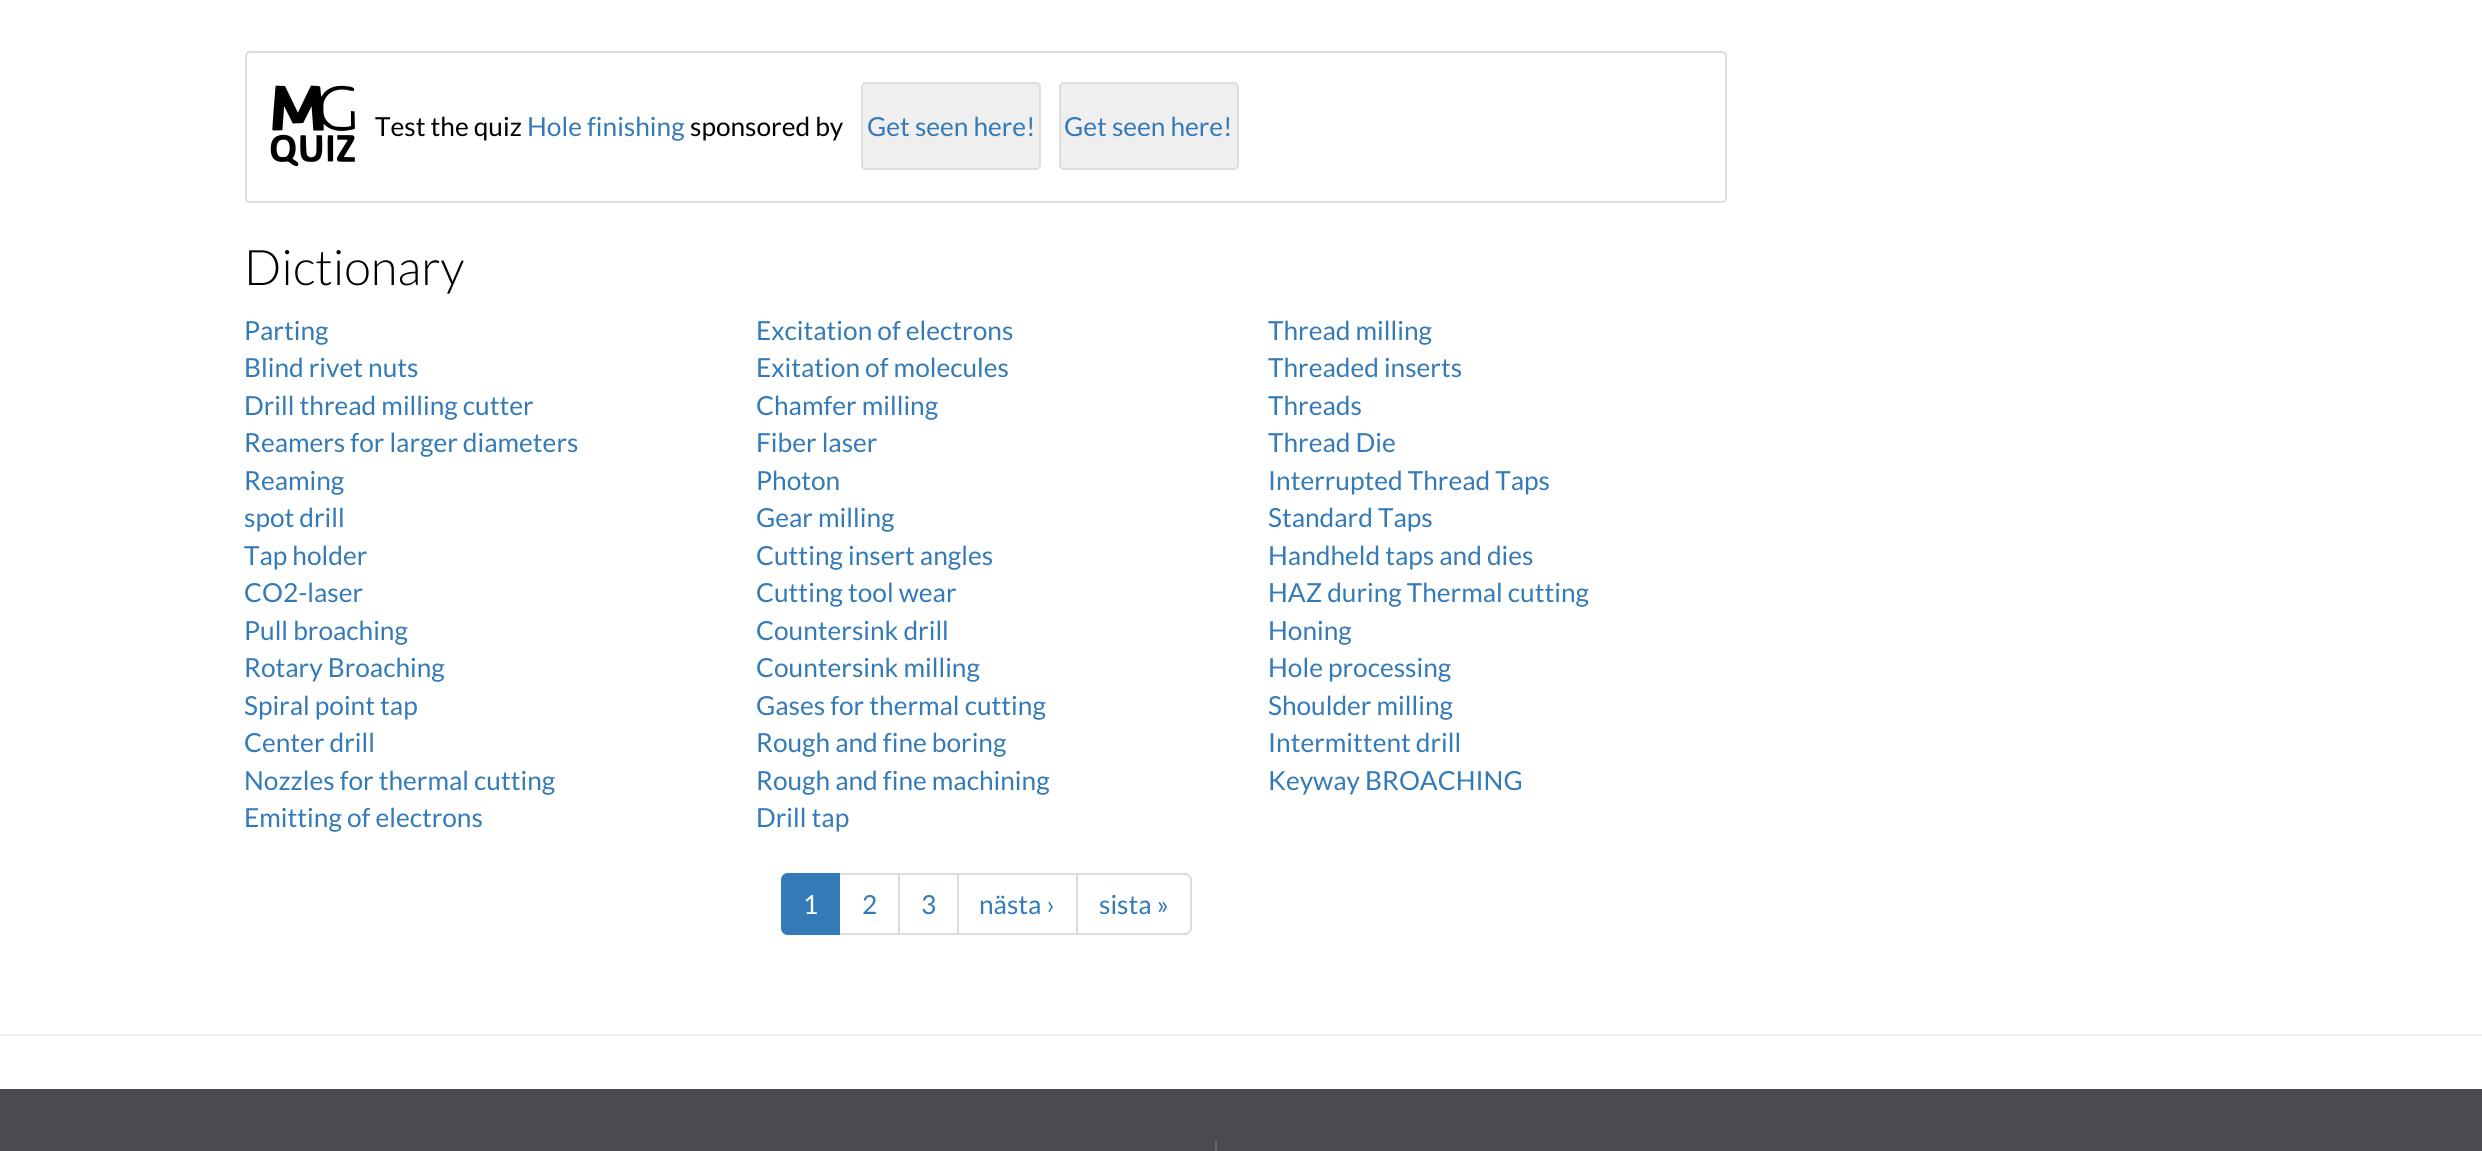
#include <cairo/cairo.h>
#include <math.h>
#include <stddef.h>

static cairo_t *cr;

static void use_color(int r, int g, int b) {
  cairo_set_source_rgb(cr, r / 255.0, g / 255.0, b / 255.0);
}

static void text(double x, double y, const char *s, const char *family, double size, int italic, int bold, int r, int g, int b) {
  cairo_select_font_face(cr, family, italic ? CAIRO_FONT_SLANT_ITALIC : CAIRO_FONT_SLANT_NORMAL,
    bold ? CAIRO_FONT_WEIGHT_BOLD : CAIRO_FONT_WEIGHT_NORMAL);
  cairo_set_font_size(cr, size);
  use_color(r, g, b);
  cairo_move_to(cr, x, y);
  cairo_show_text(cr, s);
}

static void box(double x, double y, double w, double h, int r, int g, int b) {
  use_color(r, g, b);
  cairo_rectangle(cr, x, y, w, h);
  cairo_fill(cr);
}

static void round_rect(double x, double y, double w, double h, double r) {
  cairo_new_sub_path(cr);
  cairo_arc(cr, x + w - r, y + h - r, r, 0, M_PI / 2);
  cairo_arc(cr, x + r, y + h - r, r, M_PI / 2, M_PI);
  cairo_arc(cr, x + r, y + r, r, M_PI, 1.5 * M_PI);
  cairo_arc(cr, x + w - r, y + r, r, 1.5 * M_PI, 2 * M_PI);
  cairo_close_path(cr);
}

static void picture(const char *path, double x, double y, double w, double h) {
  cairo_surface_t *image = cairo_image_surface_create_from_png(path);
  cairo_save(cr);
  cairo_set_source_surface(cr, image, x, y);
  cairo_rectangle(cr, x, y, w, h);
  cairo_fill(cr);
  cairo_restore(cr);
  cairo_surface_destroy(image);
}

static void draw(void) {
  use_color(255, 255, 255);
  cairo_paint(cr);
  round_rect(246, 52, 1480, 150, 4);
  use_color(221, 221, 221);
  cairo_stroke(cr);
  picture("img_01.png", 270, 85, 85, 82);
  use_color(239, 239, 239);
  round_rect(862, 83, 178, 86, 4);
  cairo_fill_preserve(cr);
  use_color(221, 221, 221);
  cairo_stroke(cr);
  use_color(239, 239, 239);
  round_rect(1060, 83, 178, 86, 4);
  cairo_fill_preserve(cr);
  use_color(221, 221, 221);
  cairo_stroke(cr);
  cairo_rectangle(cr, 839, 874, 60, 60);
  cairo_stroke(cr);
  use_color(51, 122, 183);
  cairo_new_path(cr);
  cairo_move_to(cr, 788, 874);
  cairo_line_to(cr, 839, 874);
  cairo_line_to(cr, 839, 934);
  cairo_line_to(cr, 788, 934);
  cairo_curve_to(cr, 784.5, 934, 782, 931.5, 782, 928);
  cairo_line_to(cr, 782, 880);
  cairo_curve_to(cr, 782, 876.5, 784.5, 874, 788, 874);
  cairo_close_path(cr);
  cairo_fill_preserve(cr);
  cairo_stroke(cr);
  cairo_rectangle(cr, 899, 874, 59, 60);
  use_color(221, 221, 221);
  cairo_stroke(cr);
  cairo_rectangle(cr, 958, 874, 119, 60);
  cairo_stroke(cr);
  use_color(255, 255, 255);
  cairo_new_path(cr);
  cairo_move_to(cr, 1077, 874);
  cairo_line_to(cr, 1185, 874);
  cairo_curve_to(cr, 1188.5, 874, 1191, 876.5, 1191, 880);
  cairo_line_to(cr, 1191, 928);
  cairo_curve_to(cr, 1191, 931.5, 1188.5, 934, 1185, 934);
  cairo_line_to(cr, 1077, 934);
  cairo_close_path(cr);
  cairo_fill_preserve(cr);
  use_color(221, 221, 221);
  cairo_stroke(cr);
  box(0, 1089, 2482, 62, 73, 75, 79);
  box(0, 1034, 2482, 2, 238, 238, 238);
  box(1215, 1141, 2, 10, 105, 107, 112);
  text(375, 136, "Test the quiz", "Lato", 26.25, 0, 0, 0, 0, 0);
  text(527, 136, "Hole finishing", "Lato", 26.25, 0, 0, 51, 122, 183);
  text(690, 136, "sponsored by", "Lato", 26.25, 0, 0, 0, 0, 0);
  text(867, 136, "Get seen here!", "Lato", 26.25, 0, 0, 51, 122, 183);
  text(1064, 136, "Get seen here!", "Lato", 26.25, 0, 0, 51, 122, 183);
  text(244, 285, "Dictionary", "Lato Light", 49, 0, 0, 0, 0, 0);
  text(244, 340, "Parting", "Lato", 26.25, 0, 0, 51, 122, 183);
  text(756, 340, "Excitation of electrons", "Lato", 26.25, 0, 0, 51, 122, 183);
  text(1268, 340, "Thread milling", "Lato", 26.25, 0, 0, 51, 122, 183);
  text(244, 377, "Blind rivet nuts", "Lato", 26.25, 0, 0, 51, 122, 183);
  text(756, 377, "Exitation of molecules", "Lato", 26.25, 0, 0, 51, 122, 183);
  text(1268, 377, "Threaded inserts", "Lato", 26.25, 0, 0, 51, 122, 183);
  text(244, 415, "Drill thread milling cutter", "Lato", 26.25, 0, 0, 51, 122, 183);
  text(756, 415, "Chamfer milling", "Lato", 26.25, 0, 0, 51, 122, 183);
  text(1268, 415, "Threads", "Lato", 26.25, 0, 0, 51, 122, 183);
  text(244, 452, "Reamers for larger diameters", "Lato", 26.25, 0, 0, 51, 122, 183);
  text(756, 452, "Fiber laser", "Lato", 26.25, 0, 0, 51, 122, 183);
  text(1268, 452, "Thread Die", "Lato", 26.25, 0, 0, 51, 122, 183);
  text(244, 490, "Reaming", "Lato", 26.25, 0, 0, 51, 122, 183);
  text(756, 490, "Photon", "Lato", 26.25, 0, 0, 51, 122, 183);
  text(1268, 490, "Interrupted Thread Taps", "Lato", 26.25, 0, 0, 51, 122, 183);
  text(244, 527, "spot drill", "Lato", 26.25, 0, 0, 51, 122, 183);
  text(756, 527, "Gear milling", "Lato", 26.25, 0, 0, 51, 122, 183);
  text(1268, 527, "Standard Taps", "Lato", 26.25, 0, 0, 51, 122, 183);
  text(244, 565, "Tap holder", "Lato", 26.25, 0, 0, 51, 122, 183);
  text(756, 565, "Cutting insert angles", "Lato", 26.25, 0, 0, 51, 122, 183);
  text(1268, 565, "Handheld taps and dies", "Lato", 26.25, 0, 0, 51, 122, 183);
  text(244, 602, "CO2-laser", "Lato", 26.25, 0, 0, 51, 122, 183);
  text(756, 602, "Cutting tool wear", "Lato", 26.25, 0, 0, 51, 122, 183);
  text(1268, 602, "HAZ during Thermal cutting", "Lato", 26.25, 0, 0, 51, 122, 183);
  text(244, 640, "Pull broaching", "Lato", 26.25, 0, 0, 51, 122, 183);
  text(756, 640, "Countersink drill", "Lato", 26.25, 0, 0, 51, 122, 183);
  text(1268, 640, "Honing", "Lato", 26.25, 0, 0, 51, 122, 183);
  text(244, 677, "Rotary Broaching", "Lato", 26.25, 0, 0, 51, 122, 183);
  text(756, 677, "Countersink milling", "Lato", 26.25, 0, 0, 51, 122, 183);
  text(1268, 677, "Hole processing", "Lato", 26.25, 0, 0, 51, 122, 183);
  text(244, 715, "Spiral point tap", "Lato", 26.25, 0, 0, 51, 122, 183);
  text(756, 715, "Gases for thermal cutting", "Lato", 26.25, 0, 0, 51, 122, 183);
  text(1268, 715, "Shoulder milling", "Lato", 26.25, 0, 0, 51, 122, 183);
  text(244, 752, "Center drill", "Lato", 26.25, 0, 0, 51, 122, 183);
  text(756, 752, "Rough and fine boring", "Lato", 26.25, 0, 0, 51, 122, 183);
  text(1268, 752, "Intermittent drill", "Lato", 26.25, 0, 0, 51, 122, 183);
  text(244, 790, "Nozzles for thermal cutting", "Lato", 26.25, 0, 0, 51, 122, 183);
  text(756, 790, "Rough and fine machining", "Lato", 26.25, 0, 0, 51, 122, 183);
  text(1268, 790, "Keyway BROACHING", "Lato", 26.25, 0, 0, 51, 122, 183);
  text(244, 827, "Emitting of electrons", "Lato", 26.25, 0, 0, 51, 122, 183);
  text(756, 827, "Drill tap", "Lato", 26.25, 0, 0, 51, 122, 183);
  text(803, 914, "1", "Lato", 26.25, 0, 0, 255, 255, 255);
  text(862, 914, "2", "Lato", 26.25, 0, 0, 51, 122, 183);
  text(921, 914, "3", "Lato", 26.25, 0, 0, 51, 122, 183);
  text(979, 914, "nästa ›", "Lato", 26.25, 0, 0, 51, 122, 183);
  text(1099, 914, "sista »", "Lato", 26.25, 0, 0, 51, 122, 183);
}

int main(void) {
  cairo_surface_t *surface = cairo_image_surface_create(CAIRO_FORMAT_RGB24, 2482, 1151);
  cr = cairo_create(surface);
  cairo_font_options_t *options = cairo_font_options_create();
  cairo_font_options_set_hint_metrics(options, CAIRO_HINT_METRICS_OFF);
  cairo_font_options_set_hint_style(options, CAIRO_HINT_STYLE_NONE);
  cairo_set_font_options(cr, options);
  cairo_set_miter_limit(cr, 4);
  draw();
  cairo_surface_write_to_png(surface, "out.png");
  cairo_font_options_destroy(options);
  cairo_destroy(cr);
  cairo_surface_destroy(surface);
  return 0;
}
